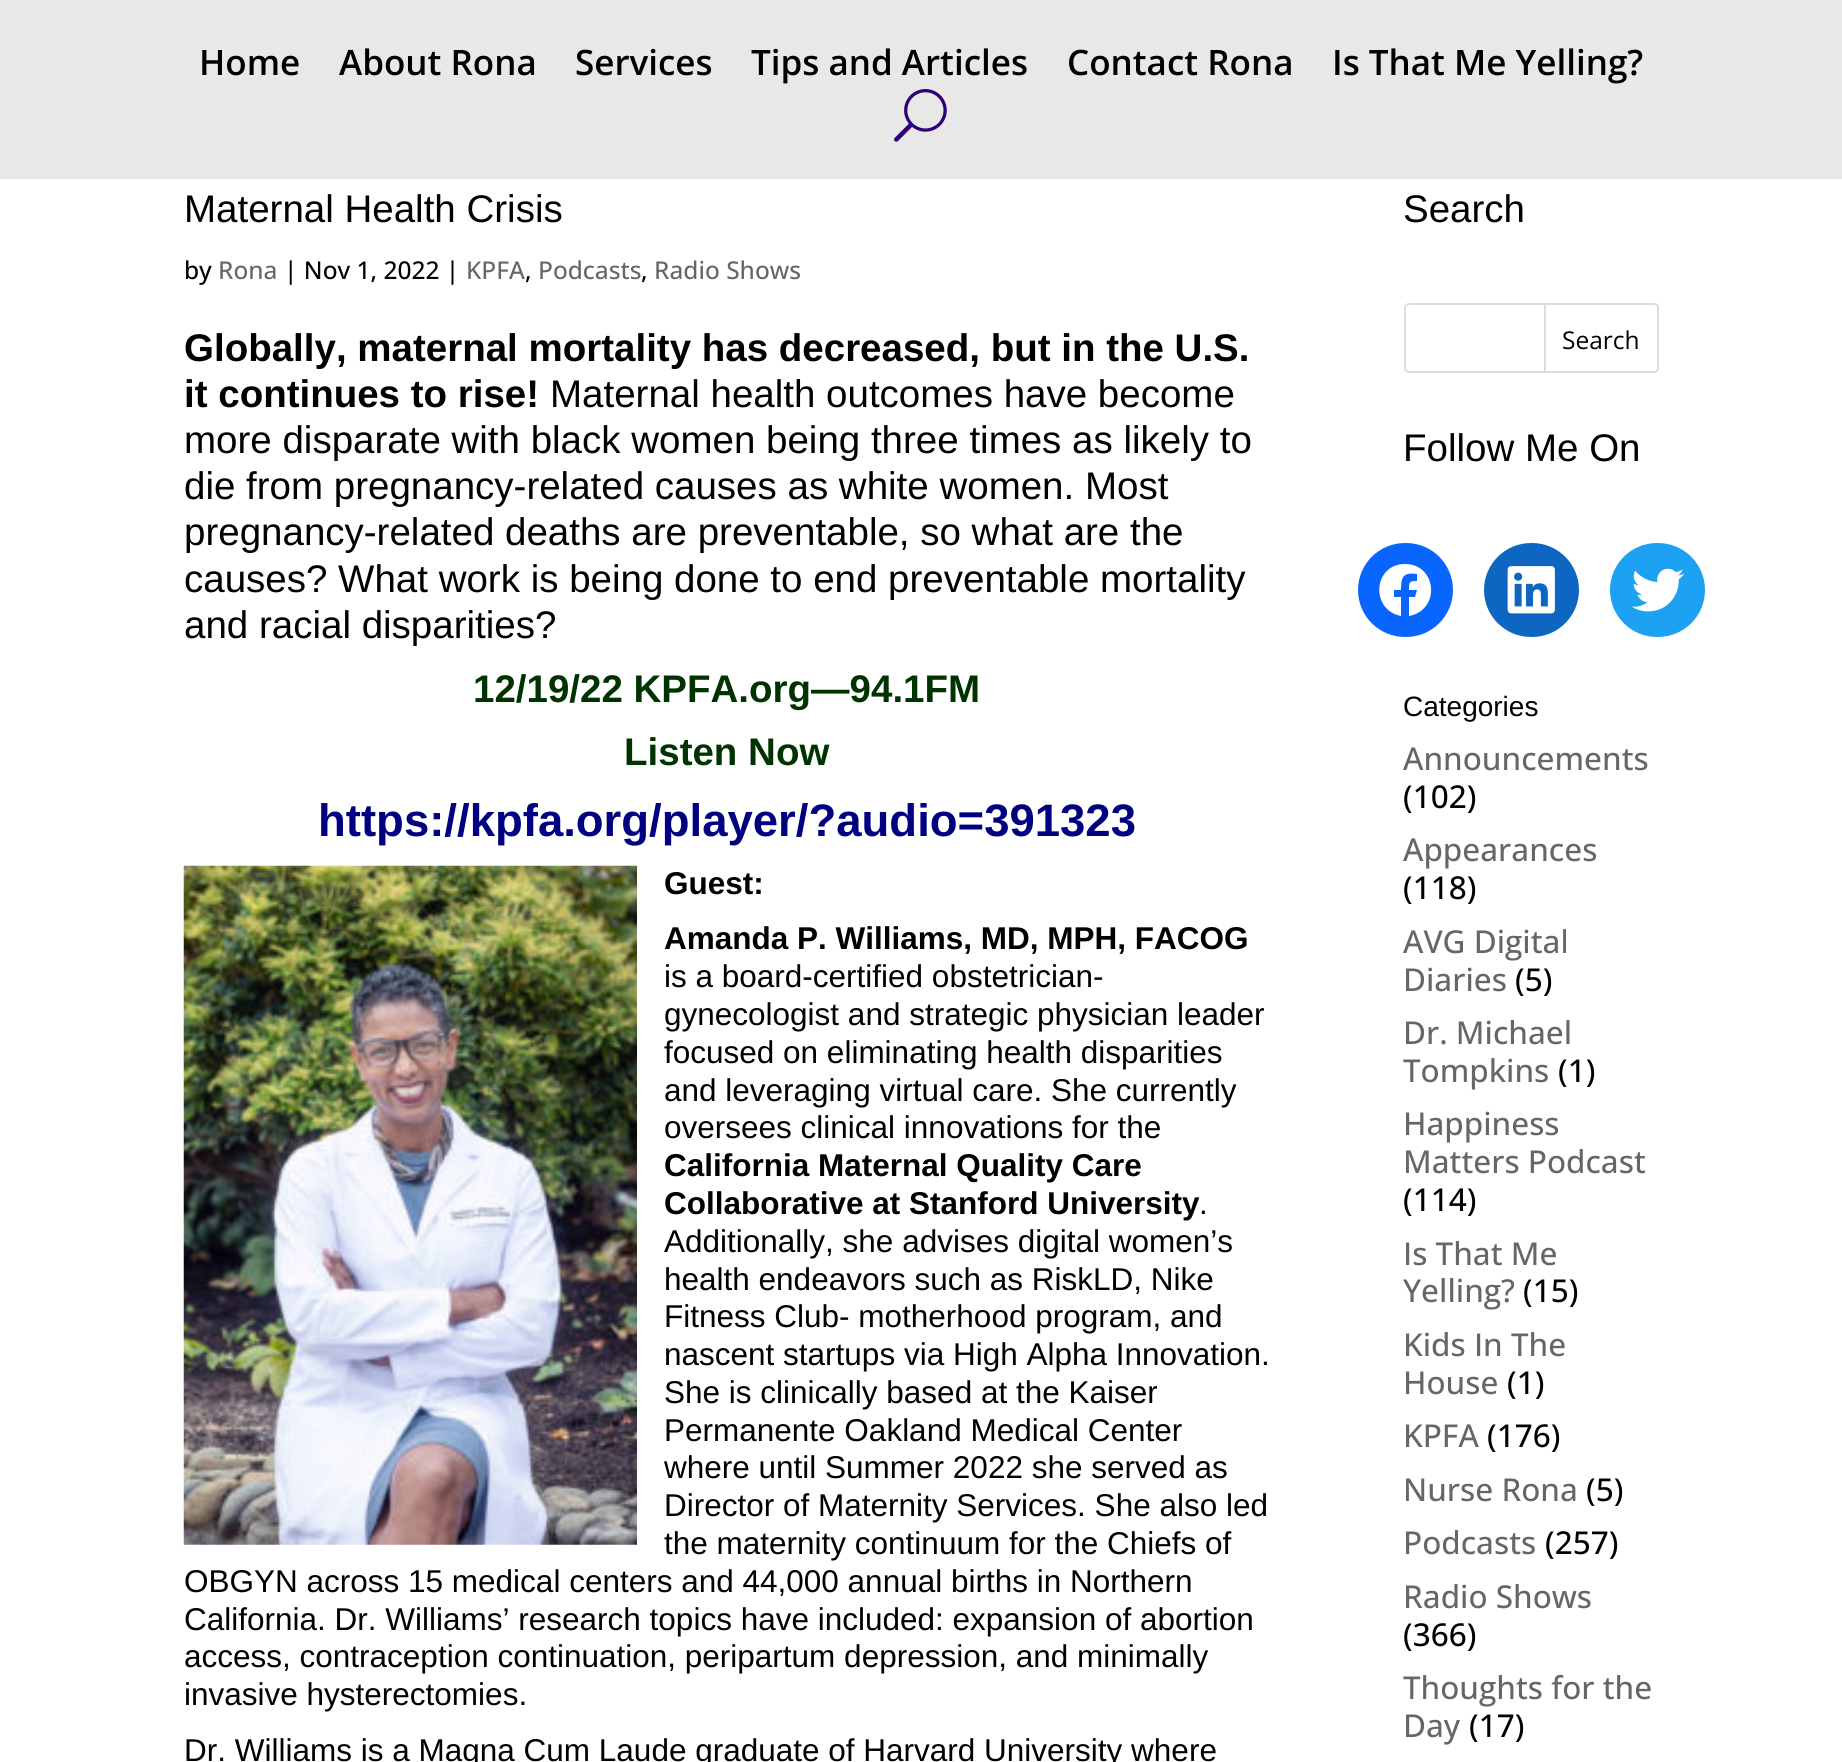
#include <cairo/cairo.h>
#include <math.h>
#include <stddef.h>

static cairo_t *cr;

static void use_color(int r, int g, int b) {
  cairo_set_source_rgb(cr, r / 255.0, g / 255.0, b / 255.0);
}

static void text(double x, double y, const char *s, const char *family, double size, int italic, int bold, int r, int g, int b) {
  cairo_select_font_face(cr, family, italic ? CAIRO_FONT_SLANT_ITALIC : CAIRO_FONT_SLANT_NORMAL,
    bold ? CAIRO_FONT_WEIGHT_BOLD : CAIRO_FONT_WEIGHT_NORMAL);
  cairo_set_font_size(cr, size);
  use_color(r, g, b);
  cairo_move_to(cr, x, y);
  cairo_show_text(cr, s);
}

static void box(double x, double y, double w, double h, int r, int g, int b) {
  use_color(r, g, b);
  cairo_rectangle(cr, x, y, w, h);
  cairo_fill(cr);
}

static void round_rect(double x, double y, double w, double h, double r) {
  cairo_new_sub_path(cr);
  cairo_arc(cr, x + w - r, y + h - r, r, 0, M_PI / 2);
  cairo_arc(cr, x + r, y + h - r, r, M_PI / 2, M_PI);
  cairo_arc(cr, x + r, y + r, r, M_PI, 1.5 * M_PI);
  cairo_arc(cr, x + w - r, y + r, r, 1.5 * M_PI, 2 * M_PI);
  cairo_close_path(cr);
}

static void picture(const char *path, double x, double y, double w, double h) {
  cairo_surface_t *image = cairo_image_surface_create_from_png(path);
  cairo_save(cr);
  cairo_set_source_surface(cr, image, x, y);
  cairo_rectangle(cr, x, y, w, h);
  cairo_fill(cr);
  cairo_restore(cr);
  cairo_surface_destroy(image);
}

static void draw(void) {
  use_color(255, 255, 255);
  cairo_paint(cr);
  box(0, 0, 1842, 179, 232, 232, 232);
  picture("img_01.png", 894, 89, 53, 53);
  picture("img_02.png", 183, 865, 454, 680);
  round_rect(1405, 304, 253, 68, 4);
  use_color(221, 221, 221);
  cairo_stroke(cr);
  use_color(255, 255, 255);
  cairo_new_path(cr);
  cairo_move_to(cr, 1545, 304);
  cairo_line_to(cr, 1654, 304);
  cairo_curve_to(cr, 1656, 304, 1658, 306, 1658, 308);
  cairo_line_to(cr, 1658, 368);
  cairo_curve_to(cr, 1658, 370, 1656, 372, 1654, 372);
  cairo_line_to(cr, 1545, 372);
  cairo_close_path(cr);
  cairo_fill_preserve(cr);
  use_color(221, 221, 221);
  cairo_stroke(cr);
  use_color(8, 102, 255);
  round_rect(1358, 543, 95, 94, 47);
  cairo_fill(cr);
  use_color(255, 255, 255);
  cairo_new_path(cr);
  cairo_move_to(cr, 1405, 564);
  cairo_curve_to(cr, 1373, 564, 1370, 610, 1401, 616);
  cairo_line_to(cr, 1401, 597);
  cairo_line_to(cr, 1394, 597);
  cairo_line_to(cr, 1394, 590);
  cairo_line_to(cr, 1401, 590);
  cairo_curve_to(cr, 1401, 577, 1403, 572, 1417, 574);
  cairo_line_to(cr, 1417, 581);
  cairo_curve_to(cr, 1409, 581, 1409, 582, 1409, 590);
  cairo_line_to(cr, 1417, 590);
  cairo_line_to(cr, 1415, 597);
  cairo_line_to(cr, 1409, 597);
  cairo_line_to(cr, 1409, 616);
  cairo_curve_to(cr, 1441, 610, 1437, 564, 1405, 564);
  cairo_close_path(cr);
  cairo_fill(cr);
  use_color(13, 102, 194);
  round_rect(1484, 543, 95, 94, 47);
  cairo_fill(cr);
  picture("img_03.png", 1507, 566, 48, 48);
  use_color(29, 161, 242);
  round_rect(1610, 543, 95, 94, 47);
  cairo_fill(cr);
  picture("img_04.png", 1631, 568, 53, 44);
  text(199, 75, "Home", "Open Sans SemiBold", 35, 0, 0, 0, 0, 0);
  text(339, 75, "About Rona", "Open Sans SemiBold", 35, 0, 0, 0, 0, 0);
  text(575, 75, "Services", "Open Sans SemiBold", 35, 0, 0, 0, 0, 0);
  text(751, 75, "Tips and Articles", "Open Sans SemiBold", 35, 0, 0, 0, 0, 0);
  text(1067, 75, "Contact Rona", "Open Sans SemiBold", 35, 0, 0, 0, 0, 0);
  text(1332, 75, "Is That Me Yelling?", "Open Sans SemiBold", 35, 0, 0, 0, 0, 0);
  text(184, 222, "Maternal Health Crisis", "Liberation Sans", 38.5, 0, 0, 0, 0, 0);
  text(184, 279, "by", "Open Sans Medium", 24.5, 0, 0, 0, 0, 0);
  text(218, 279, "Rona", "Open Sans Medium", 24.5, 0, 0, 102, 102, 102);
  text(284, 279, "| Nov 1, 2022 |", "Open Sans Medium", 24.5, 0, 0, 0, 0, 0);
  text(466, 279, "KPFA", "Open Sans Medium", 24.5, 0, 0, 102, 102, 102);
  text(525, 279, ",", "Open Sans Medium", 24.5, 0, 0, 0, 0, 0);
  text(538, 279, "Podcasts", "Open Sans Medium", 24.5, 0, 0, 102, 102, 102);
  text(641, 279, ",", "Open Sans Medium", 24.5, 0, 0, 0, 0, 0);
  text(654, 279, "Radio Shows", "Open Sans Medium", 24.5, 0, 0, 102, 102, 102);
  text(184, 361, "Globally, maternal mortality has decreased, but in the U.S.", "Liberation Sans", 38.5, 0, 1, 0, 0, 0);
  text(184, 407, "it continues to rise!", "Liberation Sans", 38.5, 0, 1, 0, 0, 0);
  text(550, 407, "Maternal health outcomes have become", "Liberation Sans", 38.5, 0, 0, 0, 0, 0);
  text(184, 453, "more disparate with black women being three times as likely to", "Liberation Sans", 38.5, 0, 0, 0, 0, 0);
  text(184, 499, "die from pregnancy-related causes as white women. Most", "Liberation Sans", 38.5, 0, 0, 0, 0, 0);
  text(184, 545, "pregnancy-related deaths are preventable, so what are the", "Liberation Sans", 38.5, 0, 0, 0, 0, 0);
  text(184, 592, "causes? What work is being done to end preventable mortality", "Liberation Sans", 38.5, 0, 0, 0, 0, 0);
  text(184, 638, "and racial disparities?", "Liberation Sans", 38.5, 0, 0, 0, 0, 0);
  text(473, 702, "12/19/22 KPFA.org—94.1FM", "Liberation Sans", 38.5, 0, 1, 0, 51, 0);
  text(624, 765, "Listen Now", "Liberation Sans", 38.5, 0, 1, 0, 51, 0);
  text(318, 836, "https://kpfa.org/player/?audio=391323", "Liberation Sans", 45.5, 0, 1, 0, 0, 128);
  text(664, 894, "Guest:", "Liberation Sans", 31.5, 0, 1, 0, 0, 0);
  text(664, 949, "Amanda P. Williams, MD, MPH, FACOG", "Liberation Sans", 31.5, 0, 1, 0, 0, 0);
  text(664, 987, "is a board-certified obstetrician-", "Liberation Sans", 31.5, 0, 0, 0, 0, 0);
  text(664, 1025, "gynecologist and strategic physician leader", "Liberation Sans", 31.5, 0, 0, 0, 0, 0);
  text(664, 1063, "focused on eliminating health disparities", "Liberation Sans", 31.5, 0, 0, 0, 0, 0);
  text(664, 1101, "and leveraging virtual care. She currently", "Liberation Sans", 31.5, 0, 0, 0, 0, 0);
  text(664, 1138, "oversees clinical innovations for the", "Liberation Sans", 31.5, 0, 0, 0, 0, 0);
  text(664, 1176, "California Maternal Quality Care", "Liberation Sans", 31.5, 0, 1, 0, 0, 0);
  text(664, 1214, "Collaborative at Stanford University", "Liberation Sans", 31.5, 0, 1, 0, 0, 0);
  text(1199, 1214, ".", "Liberation Sans", 31.5, 0, 0, 0, 0, 0);
  text(664, 1252, "Additionally, she advises digital women’s", "Liberation Sans", 31.5, 0, 0, 0, 0, 0);
  text(664, 1290, "health endeavors such as RiskLD, Nike", "Liberation Sans", 31.5, 0, 0, 0, 0, 0);
  text(664, 1327, "Fitness Club- motherhood program, and", "Liberation Sans", 31.5, 0, 0, 0, 0, 0);
  text(664, 1365, "nascent startups via High Alpha Innovation.", "Liberation Sans", 31.5, 0, 0, 0, 0, 0);
  text(664, 1403, "She is clinically based at the Kaiser", "Liberation Sans", 31.5, 0, 0, 0, 0, 0);
  text(664, 1441, "Permanente Oakland Medical Center", "Liberation Sans", 31.5, 0, 0, 0, 0, 0);
  text(664, 1478, "where until Summer 2022 she served as", "Liberation Sans", 31.5, 0, 0, 0, 0, 0);
  text(664, 1516, "Director of Maternity Services. She also led", "Liberation Sans", 31.5, 0, 0, 0, 0, 0);
  text(664, 1554, "the maternity continuum for the Chiefs of", "Liberation Sans", 31.5, 0, 0, 0, 0, 0);
  text(184, 1592, "OBGYN across 15 medical centers and 44,000 annual births in Northern", "Liberation Sans", 31.5, 0, 0, 0, 0, 0);
  text(184, 1630, "California. Dr. Williams’ research topics have included: expansion of abortion", "Liberation Sans", 31.5, 0, 0, 0, 0, 0);
  text(184, 1667, "access, contraception continuation, peripartum depression, and minimally", "Liberation Sans", 31.5, 0, 0, 0, 0, 0);
  text(184, 1705, "invasive hysterectomies.", "Liberation Sans", 31.5, 0, 0, 0, 0, 0);
  text(184, 1761, "Dr. Williams is a Magna Cum Laude graduate of Harvard University where", "Liberation Sans", 31.5, 0, 0, 0, 0, 0);
  text(1403, 222, "Search", "Liberation Sans", 38.5, 0, 0, 0, 0, 0);
  text(1562, 349, "Search", "Open Sans", 24.5, 0, 0, 0, 0, 0);
  text(1403, 461, "Follow Me On", "Liberation Sans", 38.5, 0, 0, 0, 0, 0);
  text(1403, 716, "Categories", "Liberation Sans", 28, 0, 0, 0, 0, 0);
  text(1403, 770, "Announcements", "Open Sans Medium", 31.5, 0, 0, 102, 102, 102);
  text(1403, 808, "(102)", "Open Sans Medium", 31.5, 0, 0, 0, 0, 0);
  text(1403, 861, "Appearances", "Open Sans Medium", 31.5, 0, 0, 102, 102, 102);
  text(1403, 899, "(118)", "Open Sans Medium", 31.5, 0, 0, 0, 0, 0);
  text(1403, 953, "AVG Digital", "Open Sans Medium", 31.5, 0, 0, 102, 102, 102);
  text(1403, 991, "Diaries", "Open Sans Medium", 31.5, 0, 0, 102, 102, 102);
  text(1515, 991, "(5)", "Open Sans Medium", 31.5, 0, 0, 0, 0, 0);
  text(1403, 1044, "Dr. Michael", "Open Sans Medium", 31.5, 0, 0, 102, 102, 102);
  text(1403, 1082, "Tompkins", "Open Sans Medium", 31.5, 0, 0, 102, 102, 102);
  text(1558, 1082, "(1)", "Open Sans Medium", 31.5, 0, 0, 0, 0, 0);
  text(1403, 1135, "Happiness", "Open Sans Medium", 31.5, 0, 0, 102, 102, 102);
  text(1403, 1173, "Matters Podcast", "Open Sans Medium", 31.5, 0, 0, 102, 102, 102);
  text(1403, 1211, "(114)", "Open Sans Medium", 31.5, 0, 0, 0, 0, 0);
  text(1403, 1265, "Is That Me", "Open Sans Medium", 31.5, 0, 0, 102, 102, 102);
  text(1403, 1302, "Yelling?", "Open Sans Medium", 31.5, 0, 0, 102, 102, 102);
  text(1523, 1302, "(15)", "Open Sans Medium", 31.5, 0, 0, 0, 0, 0);
  text(1403, 1356, "Kids In The", "Open Sans Medium", 31.5, 0, 0, 102, 102, 102);
  text(1403, 1394, "House", "Open Sans Medium", 31.5, 0, 0, 102, 102, 102);
  text(1507, 1394, "(1)", "Open Sans Medium", 31.5, 0, 0, 0, 0, 0);
  text(1403, 1447, "KPFA", "Open Sans Medium", 31.5, 0, 0, 102, 102, 102);
  text(1487, 1447, "(176)", "Open Sans Medium", 31.5, 0, 0, 0, 0, 0);
  text(1403, 1501, "Nurse Rona", "Open Sans Medium", 31.5, 0, 0, 102, 102, 102);
  text(1586, 1501, "(5)", "Open Sans Medium", 31.5, 0, 0, 0, 0, 0);
  text(1403, 1554, "Podcasts", "Open Sans Medium", 31.5, 0, 0, 102, 102, 102);
  text(1545, 1554, "(257)", "Open Sans Medium", 31.5, 0, 0, 0, 0, 0);
  text(1403, 1608, "Radio Shows", "Open Sans Medium", 31.5, 0, 0, 102, 102, 102);
  text(1403, 1646, "(366)", "Open Sans Medium", 31.5, 0, 0, 0, 0, 0);
  text(1403, 1699, "Thoughts for the", "Open Sans Medium", 31.5, 0, 0, 102, 102, 102);
  text(1403, 1737, "Day", "Open Sans Medium", 31.5, 0, 0, 102, 102, 102);
  text(1469, 1737, "(17)", "Open Sans Medium", 31.5, 0, 0, 0, 0, 0);
}

int main(void) {
  cairo_surface_t *surface = cairo_image_surface_create(CAIRO_FORMAT_RGB24, 1842, 1762);
  cr = cairo_create(surface);
  cairo_font_options_t *options = cairo_font_options_create();
  cairo_font_options_set_hint_metrics(options, CAIRO_HINT_METRICS_OFF);
  cairo_font_options_set_hint_style(options, CAIRO_HINT_STYLE_NONE);
  cairo_set_font_options(cr, options);
  cairo_set_miter_limit(cr, 4);
  draw();
  cairo_surface_write_to_png(surface, "out.png");
  cairo_font_options_destroy(options);
  cairo_destroy(cr);
  cairo_surface_destroy(surface);
  return 0;
}
